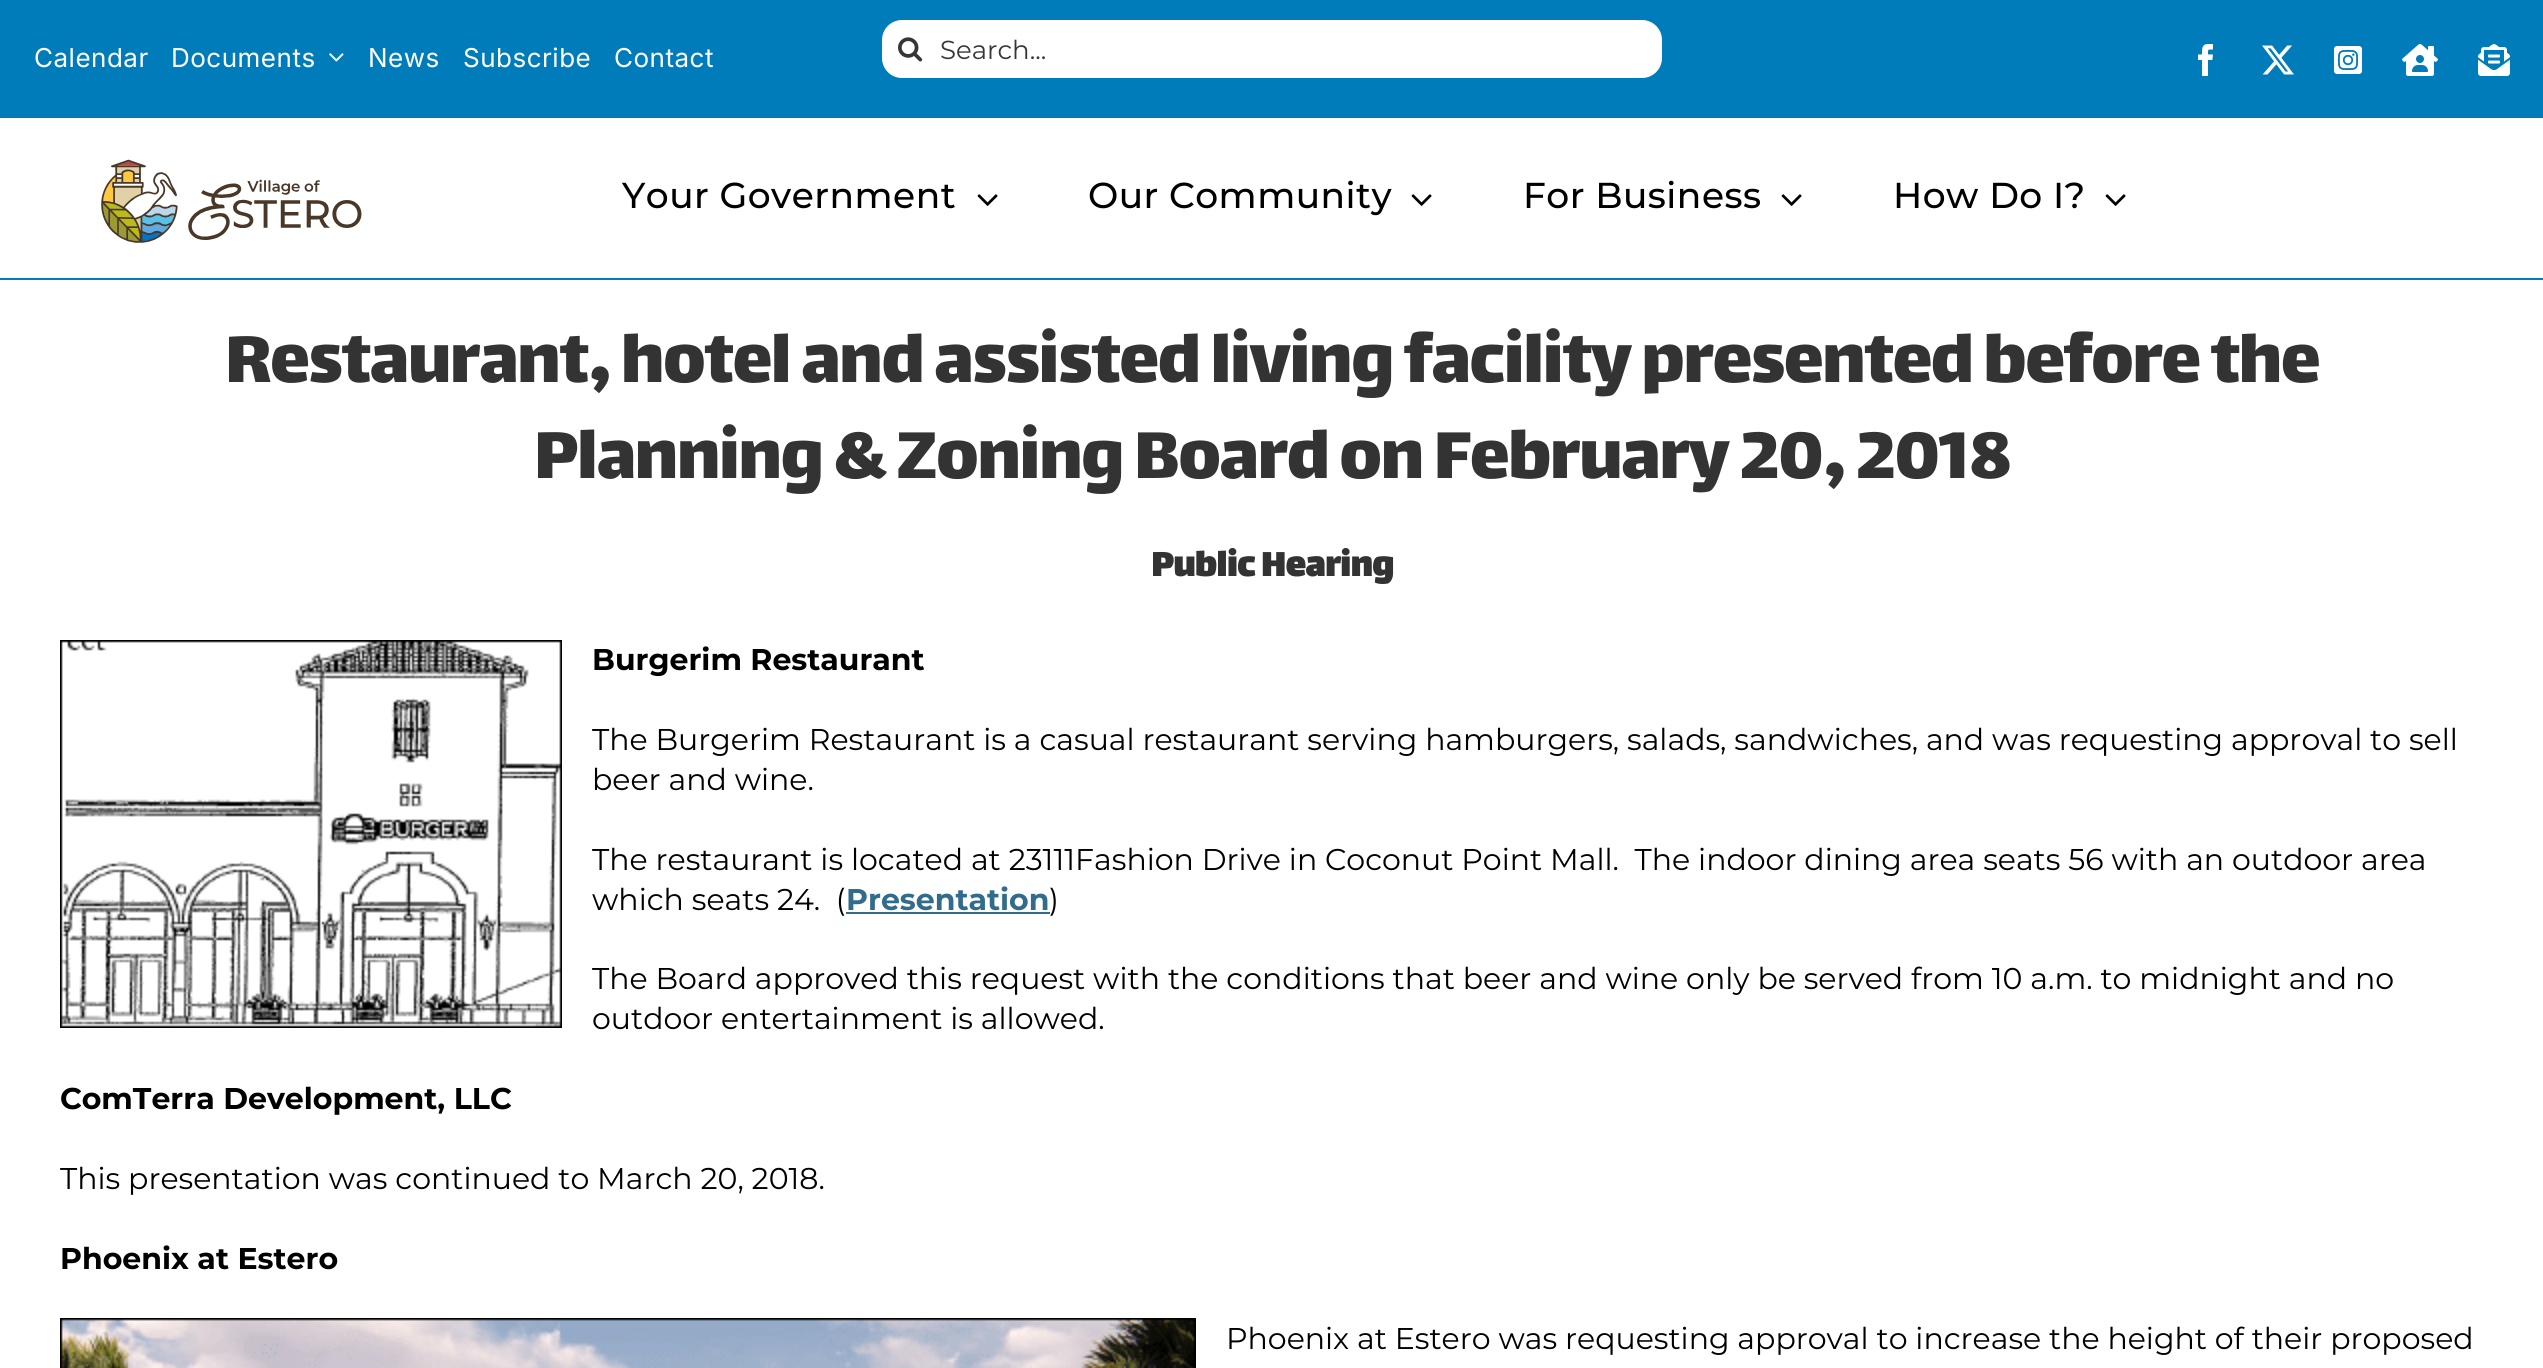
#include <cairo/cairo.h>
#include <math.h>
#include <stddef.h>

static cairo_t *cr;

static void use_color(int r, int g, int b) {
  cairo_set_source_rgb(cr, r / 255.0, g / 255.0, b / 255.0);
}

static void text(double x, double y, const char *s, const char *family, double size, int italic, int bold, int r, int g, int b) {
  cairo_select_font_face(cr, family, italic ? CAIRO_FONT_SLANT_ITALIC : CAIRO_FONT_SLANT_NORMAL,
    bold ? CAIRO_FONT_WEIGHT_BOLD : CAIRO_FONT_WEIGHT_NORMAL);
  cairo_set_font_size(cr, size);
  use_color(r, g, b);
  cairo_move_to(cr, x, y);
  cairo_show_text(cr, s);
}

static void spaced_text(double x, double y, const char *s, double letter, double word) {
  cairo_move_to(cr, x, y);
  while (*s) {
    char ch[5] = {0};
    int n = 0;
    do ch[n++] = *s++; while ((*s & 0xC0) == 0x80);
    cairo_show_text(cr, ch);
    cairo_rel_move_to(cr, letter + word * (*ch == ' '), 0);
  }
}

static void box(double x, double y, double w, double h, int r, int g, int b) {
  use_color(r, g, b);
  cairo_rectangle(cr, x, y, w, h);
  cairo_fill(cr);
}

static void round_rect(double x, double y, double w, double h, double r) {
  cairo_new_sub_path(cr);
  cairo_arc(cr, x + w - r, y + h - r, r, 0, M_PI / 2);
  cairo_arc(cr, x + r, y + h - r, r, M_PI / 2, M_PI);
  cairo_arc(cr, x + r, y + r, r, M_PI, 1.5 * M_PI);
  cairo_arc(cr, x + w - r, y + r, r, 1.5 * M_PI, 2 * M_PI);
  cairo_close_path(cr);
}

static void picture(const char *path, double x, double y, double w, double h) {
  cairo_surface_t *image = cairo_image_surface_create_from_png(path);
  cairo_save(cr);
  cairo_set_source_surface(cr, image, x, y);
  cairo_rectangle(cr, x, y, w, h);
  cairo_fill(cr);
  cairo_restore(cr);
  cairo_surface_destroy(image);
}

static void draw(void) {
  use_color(255, 255, 255);
  cairo_paint(cr);
  box(0, 0, 2543, 118, 0, 124, 186);
  picture("img_01.png", 329, 53, 15, 9);
  use_color(255, 255, 255);
  round_rect(882, 20, 780, 58, 20);
  cairo_fill(cr);
  picture("img_02.png", 898, 37, 25, 25);
  picture("img_03.png", 2198, 44, 15, 32);
  picture("img_04.png", 2262, 45, 32, 30);
  picture("img_05.png", 2334, 46, 28, 28);
  picture("img_06.png", 2402, 44, 36, 32);
  picture("img_07.png", 2478, 44, 32, 32);
  box(0, 278, 2543, 2, 0, 124, 186);
  picture("img_08.png", 101, 159, 261, 84);
  picture("img_09.png", 977, 194, 21, 12);
  picture("img_09.png", 1411, 194, 21, 12);
  picture("img_09.png", 1781, 194, 21, 12);
  picture("img_09.png", 2105, 194, 21, 12);
  picture("img_10.png", 60, 640, 502, 388);
  box(846, 912, 204, 2, 50, 108, 140);
  picture("img_11.png", 60, 1318, 1136, 50);
  cairo_select_font_face(cr, "Inter", CAIRO_FONT_SLANT_NORMAL, CAIRO_FONT_WEIGHT_NORMAL);
  cairo_set_font_size(cr, 26);
  use_color(255, 255, 255);
  spaced_text(34, 67, "Calendar", 0.5, 0);
  spaced_text(171, 67, "Documents", 0.5, 0);
  spaced_text(368, 67, "News", 0.5, 0);
  spaced_text(463, 67, "Subscribe", 0.5, 0);
  spaced_text(614, 67, "Contact", 0.5, 0);
  text(940, 59, "Search...", "Montserrat", 26, 0, 0, 58, 53, 53);
  cairo_select_font_face(cr, "Montserrat Medium", CAIRO_FONT_SLANT_NORMAL, CAIRO_FONT_WEIGHT_NORMAL);
  cairo_set_font_size(cr, 36);
  use_color(0, 0, 0);
  spaced_text(622, 208, "Your Government", 0.5, 0);
  spaced_text(1088, 208, "Our Community", 0.5, 0);
  spaced_text(1523, 208, "For Business", 0.5, 0);
  spaced_text(1893, 208, "How Do I?", 0.5, 0);
  cairo_select_font_face(cr, "Lalezar", CAIRO_FONT_SLANT_NORMAL, CAIRO_FONT_WEIGHT_NORMAL);
  cairo_set_font_size(cr, 80);
  use_color(51, 51, 51);
  spaced_text(225, 382, "Restaurant, hotel and assisted living facility presented before the", -1.2, 0);
  spaced_text(534, 478, "Planning & Zoning Board on February 20, 2018", -1.2, 0);
  text(1151, 576, "Public Hearing", "Lalezar", 40, 0, 1, 51, 51, 51);
  text(592, 670, "Burgerim Restaurant", "Montserrat", 30, 0, 1, 0, 0, 0);
  text(592, 750, "The Burgerim Restaurant is a casual restaurant serving hamburgers, salads, sandwiches, and was requesting approval to sell", "Montserrat", 30, 0, 0, 0, 0, 0);
  text(592, 790, "beer and wine.", "Montserrat", 30, 0, 0, 0, 0, 0);
  text(592, 870, "The restaurant is located at 23111Fashion Drive in Coconut Point Mall.  The indoor dining area seats 56 with an outdoor area", "Montserrat", 30, 0, 0, 0, 0, 0);
  text(592, 910, "which seats 24.  (", "Montserrat", 30, 0, 0, 0, 0, 0);
  text(846, 910, "Presentation", "Montserrat", 30, 0, 1, 50, 108, 140);
  text(1049, 910, ")", "Montserrat", 30, 0, 0, 0, 0, 0);
  text(592, 989, "The Board approved this request with the conditions that beer and wine only be served from 10 a.m. to midnight and no", "Montserrat", 30, 0, 0, 0, 0, 0);
  text(592, 1029, "outdoor entertainment is allowed.", "Montserrat", 30, 0, 0, 0, 0, 0);
  text(60, 1109, "ComTerra Development, LLC", "Montserrat", 30, 0, 1, 0, 0, 0);
  text(60, 1189, "This presentation was continued to March 20, 2018.", "Montserrat", 30, 0, 0, 0, 0, 0);
  text(60, 1269, "Phoenix at Estero", "Montserrat", 30, 0, 1, 0, 0, 0);
  text(1226, 1349, "Phoenix at Estero was requesting approval to increase the height of their proposed", "Montserrat", 30, 0, 0, 0, 0, 0);
}

int main(void) {
  cairo_surface_t *surface = cairo_image_surface_create(CAIRO_FORMAT_RGB24, 2543, 1368);
  cr = cairo_create(surface);
  cairo_font_options_t *options = cairo_font_options_create();
  cairo_font_options_set_hint_metrics(options, CAIRO_HINT_METRICS_OFF);
  cairo_font_options_set_hint_style(options, CAIRO_HINT_STYLE_NONE);
  cairo_set_font_options(cr, options);
  cairo_set_miter_limit(cr, 4);
  draw();
  cairo_surface_write_to_png(surface, "out.png");
  cairo_font_options_destroy(options);
  cairo_destroy(cr);
  cairo_surface_destroy(surface);
  return 0;
}
